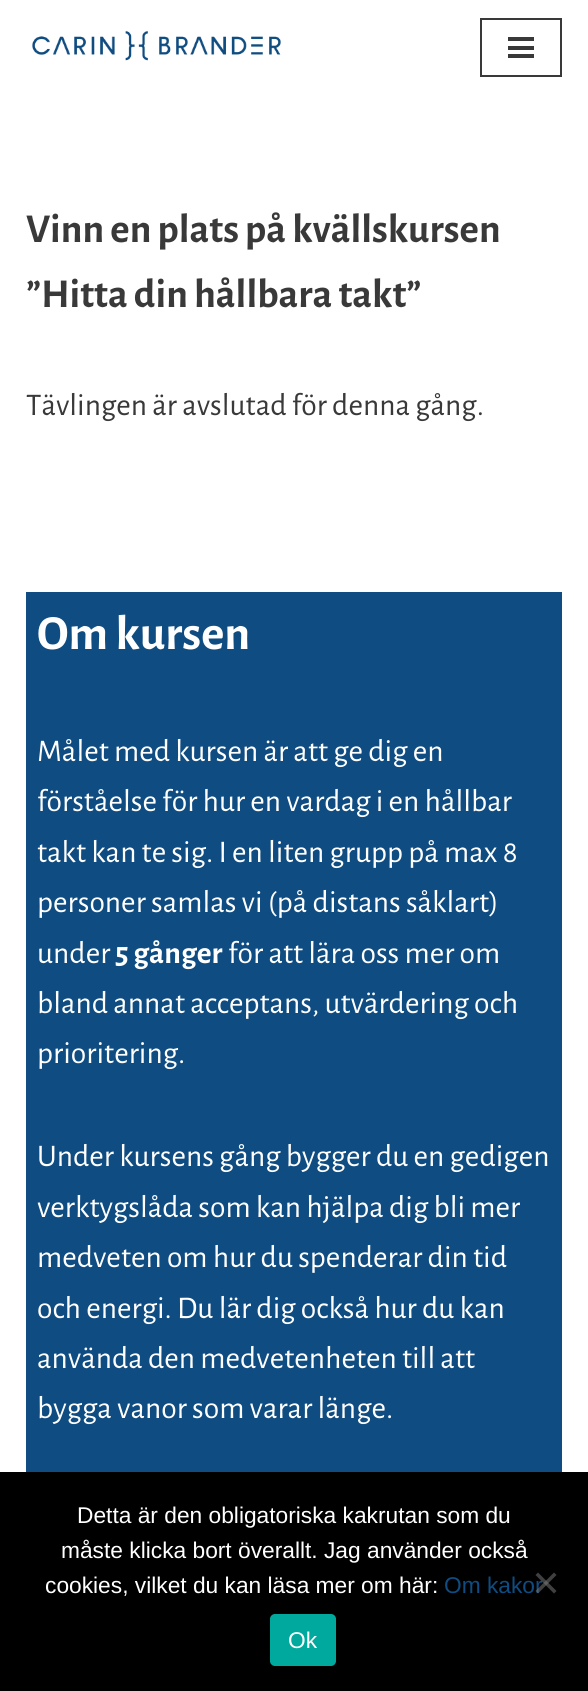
#include <cairo/cairo.h>
#include <math.h>
#include <stddef.h>

static cairo_t *cr;

static void use_color(int r, int g, int b) {
  cairo_set_source_rgb(cr, r / 255.0, g / 255.0, b / 255.0);
}

static void text(double x, double y, const char *s, const char *family, double size, int italic, int bold, int r, int g, int b) {
  cairo_select_font_face(cr, family, italic ? CAIRO_FONT_SLANT_ITALIC : CAIRO_FONT_SLANT_NORMAL,
    bold ? CAIRO_FONT_WEIGHT_BOLD : CAIRO_FONT_WEIGHT_NORMAL);
  cairo_set_font_size(cr, size);
  use_color(r, g, b);
  cairo_move_to(cr, x, y);
  cairo_show_text(cr, s);
}

static void box(double x, double y, double w, double h, int r, int g, int b) {
  use_color(r, g, b);
  cairo_rectangle(cr, x, y, w, h);
  cairo_fill(cr);
}

static void round_rect(double x, double y, double w, double h, double r) {
  cairo_new_sub_path(cr);
  cairo_arc(cr, x + w - r, y + h - r, r, 0, M_PI / 2);
  cairo_arc(cr, x + r, y + h - r, r, M_PI / 2, M_PI);
  cairo_arc(cr, x + r, y + r, r, M_PI, 1.5 * M_PI);
  cairo_arc(cr, x + w - r, y + r, r, 1.5 * M_PI, 2 * M_PI);
  cairo_close_path(cr);
}

static void picture(const char *path, double x, double y, double w, double h) {
  cairo_surface_t *image = cairo_image_surface_create_from_png(path);
  cairo_save(cr);
  cairo_set_source_surface(cr, image, x, y);
  cairo_rectangle(cr, x, y, w, h);
  cairo_fill(cr);
  cairo_restore(cr);
  cairo_surface_destroy(image);
}

static void draw(void) {
  use_color(255, 255, 255);
  cairo_paint(cr);
  picture("img_01.png", 32, 30, 249, 31);
  cairo_rectangle(cr, 481, 19, 80, 57);
  use_color(57, 57, 57);
  cairo_stroke(cr);
  box(508, 37, 26, 4, 57, 57, 57);
  box(508, 46, 26, 4, 57, 57, 57);
  box(508, 54, 26, 4, 57, 57, 57);
  box(26, 592, 536, 880, 15, 76, 129);
  box(0, 1472, 588, 219, 0, 0, 0);
  use_color(0, 169, 157);
  round_rect(270, 1614, 66, 52, 5);
  cairo_fill(cr);
  text(26, 242, "Vinn en plats på kvällskursen", "Alegreya Sans", 41, 0, 1, 57, 57, 57);
  text(26, 307, "”Hitta din hållbara takt”", "Alegreya Sans", 41, 0, 1, 57, 57, 57);
  text(26, 415, "Tävlingen är avslutad för denna gång.", "Alegreya Sans", 31.5, 0, 0, 57, 57, 57);
  text(37, 649, "Om kursen", "Alegreya Sans", 49, 0, 1, 255, 255, 255);
  text(37, 761, "Målet med kursen är att ge dig en", "Alegreya Sans", 31.5, 0, 0, 255, 255, 255);
  text(37, 811, "förståelse för hur en vardag i en hållbar", "Alegreya Sans", 31.5, 0, 0, 255, 255, 255);
  text(37, 862, "takt kan te sig. I en liten grupp på max 8", "Alegreya Sans", 31.5, 0, 0, 255, 255, 255);
  text(37, 912, "personer samlas vi (på distans såklart)", "Alegreya Sans", 31.5, 0, 0, 255, 255, 255);
  text(37, 963, "under", "Alegreya Sans", 31.5, 0, 0, 255, 255, 255);
  text(115, 963, "5 gånger", "Alegreya Sans", 31.5, 0, 1, 255, 255, 255);
  text(228, 963, "för att lära oss mer om", "Alegreya Sans", 31.5, 0, 0, 255, 255, 255);
  text(37, 1013, "bland annat acceptans, utvärdering och", "Alegreya Sans", 31.5, 0, 0, 255, 255, 255);
  text(37, 1063, "prioritering.", "Alegreya Sans", 31.5, 0, 0, 255, 255, 255);
  text(37, 1166, "Under kursens gång bygger du en gedigen", "Alegreya Sans", 31.5, 0, 0, 255, 255, 255);
  text(37, 1217, "verktygslåda som kan hjälpa dig bli mer", "Alegreya Sans", 31.5, 0, 0, 255, 255, 255);
  text(37, 1267, "medveten om hur du spenderar din tid", "Alegreya Sans", 31.5, 0, 0, 255, 255, 255);
  text(37, 1318, "och energi. Du lär dig också hur du kan", "Alegreya Sans", 31.5, 0, 0, 255, 255, 255);
  text(37, 1368, "använda den medvetenheten till att", "Alegreya Sans", 31.5, 0, 0, 255, 255, 255);
  text(37, 1418, "bygga vanor som varar länge.", "Alegreya Sans", 31.5, 0, 0, 255, 255, 255);
  text(77, 1523, "Detta är den obligatoriska kakrutan som du", "Liberation Sans", 22.75, 0, 0, 255, 255, 255);
  text(61, 1558, "måste klicka bort överallt. Jag använder också", "Liberation Sans", 22.75, 0, 0, 255, 255, 255);
  text(45, 1593, "cookies, vilket du kan läsa mer om här:", "Liberation Sans", 22.75, 0, 0, 255, 255, 255);
  text(444, 1593, "Om kakor", "Liberation Sans", 22.75, 0, 0, 15, 76, 129);
  cairo_set_source_rgba(cr, 0.502, 0.502, 0.502, 0.5);
  cairo_new_path(cr);
  cairo_move_to(cr, 554, 1572.5);
  cairo_line_to(cr, 556.5, 1575);
  cairo_line_to(cr, 538, 1593.5);
  cairo_line_to(cr, 535.5, 1591);
  cairo_close_path(cr);
  cairo_fill(cr);
  cairo_new_path(cr);
  cairo_move_to(cr, 535.5, 1575);
  cairo_line_to(cr, 538, 1572.5);
  cairo_line_to(cr, 556.5, 1591);
  cairo_line_to(cr, 554, 1593.5);
  cairo_close_path(cr);
  cairo_fill(cr);
  text(288, 1648, "Ok", "Liberation Sans", 22.75, 0, 0, 255, 255, 255);
}

int main(void) {
  cairo_surface_t *surface = cairo_image_surface_create(CAIRO_FORMAT_RGB24, 588, 1691);
  cr = cairo_create(surface);
  cairo_font_options_t *options = cairo_font_options_create();
  cairo_font_options_set_hint_metrics(options, CAIRO_HINT_METRICS_OFF);
  cairo_font_options_set_hint_style(options, CAIRO_HINT_STYLE_NONE);
  cairo_set_font_options(cr, options);
  cairo_set_miter_limit(cr, 4);
  draw();
  cairo_surface_write_to_png(surface, "out.png");
  cairo_font_options_destroy(options);
  cairo_destroy(cr);
  cairo_surface_destroy(surface);
  return 0;
}
